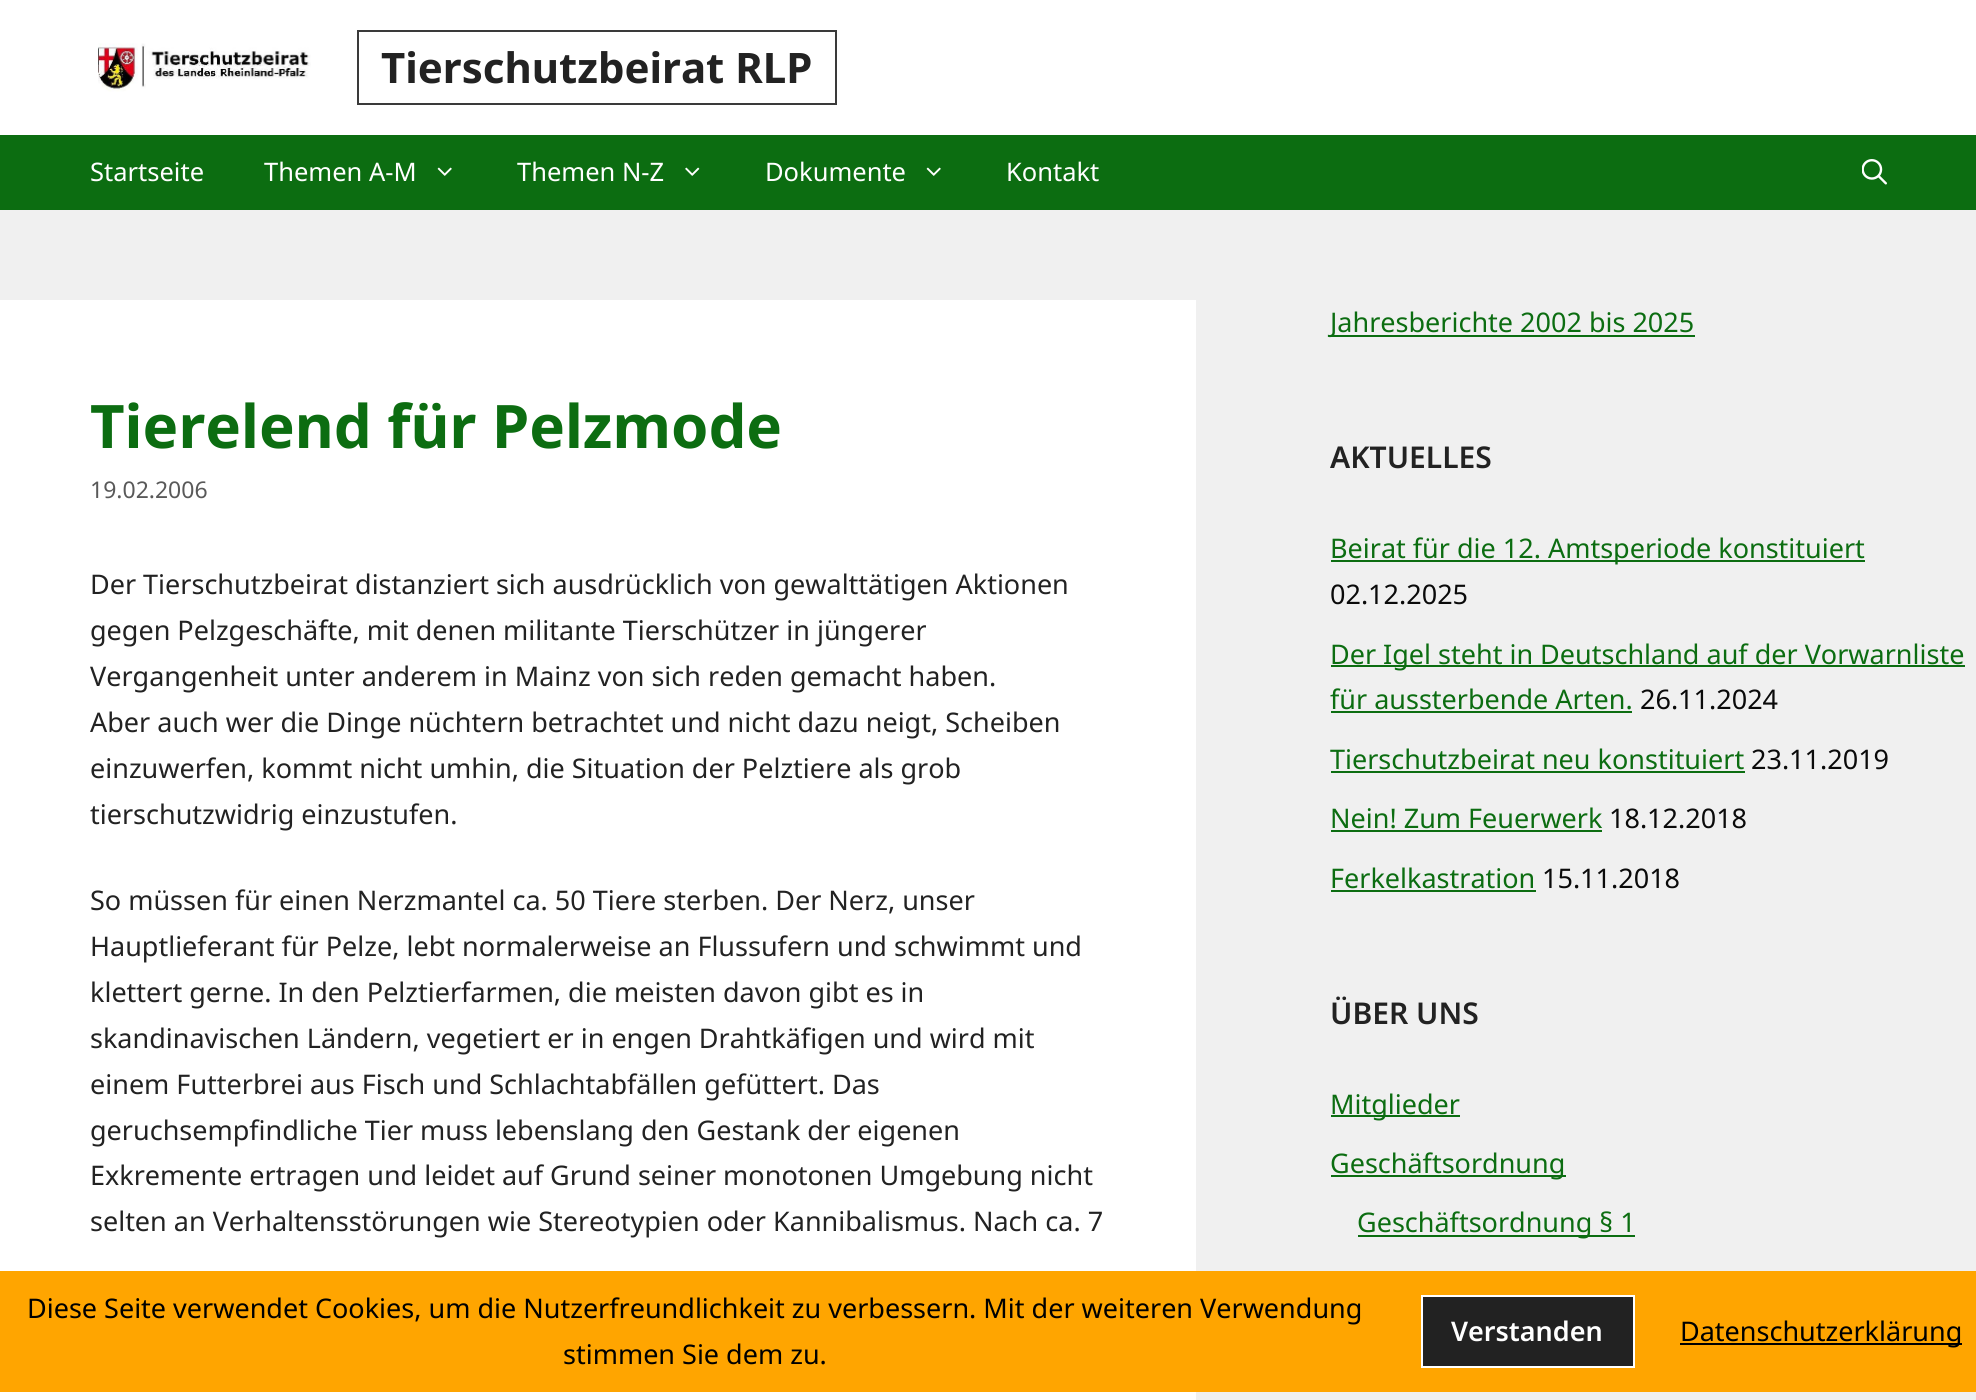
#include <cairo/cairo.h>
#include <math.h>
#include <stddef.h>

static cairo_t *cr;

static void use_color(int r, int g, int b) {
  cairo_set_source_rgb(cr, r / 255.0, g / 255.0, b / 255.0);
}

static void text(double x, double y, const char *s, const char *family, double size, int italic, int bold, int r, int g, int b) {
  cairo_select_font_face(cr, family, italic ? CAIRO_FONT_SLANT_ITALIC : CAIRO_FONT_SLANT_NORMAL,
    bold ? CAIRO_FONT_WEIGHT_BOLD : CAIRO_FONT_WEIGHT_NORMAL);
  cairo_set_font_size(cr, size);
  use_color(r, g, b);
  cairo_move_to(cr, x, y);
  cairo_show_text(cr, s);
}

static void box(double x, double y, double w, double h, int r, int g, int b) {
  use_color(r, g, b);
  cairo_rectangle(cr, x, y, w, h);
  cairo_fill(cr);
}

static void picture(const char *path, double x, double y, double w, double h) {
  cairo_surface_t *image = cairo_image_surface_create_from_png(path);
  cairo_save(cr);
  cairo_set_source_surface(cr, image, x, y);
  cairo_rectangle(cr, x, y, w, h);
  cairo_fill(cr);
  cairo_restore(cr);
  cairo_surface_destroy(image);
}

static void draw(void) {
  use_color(240, 240, 240);
  cairo_paint(cr);
  box(0, 0, 1976, 135, 255, 255, 255);
  picture("img_01.png", 98, 43, 213, 49);
  cairo_rectangle(cr, 358, 31, 478, 73);
  use_color(58, 58, 58);
  cairo_stroke(cr);
  box(0, 135, 1976, 75, 12, 109, 17);
  picture("img_02.png", 437, 167, 15, 9);
  picture("img_03.png", 685, 167, 15, 9);
  picture("img_02.png", 926, 167, 15, 9);
  picture("img_04.png", 1862, 159, 25, 26);
  box(0, 300, 1196, 1100, 255, 255, 255);
  box(1331, 335, 364, 2, 12, 109, 17);
  box(1331, 560, 534, 2, 12, 109, 17);
  box(1331, 665, 634, 2, 12, 109, 17);
  box(1331, 711, 301, 2, 12, 109, 17);
  box(1331, 771, 414, 2, 12, 109, 17);
  box(1331, 830, 271, 2, 12, 109, 17);
  box(1331, 890, 205, 2, 12, 109, 17);
  box(1331, 1115, 129, 2, 12, 109, 17);
  box(1331, 1175, 235, 2, 12, 109, 17);
  box(1358, 1235, 277, 2, 12, 109, 17);
  box(0, 1271, 1976, 121, 255, 165, 0);
  use_color(34, 34, 34);
  cairo_rectangle(cr, 1422, 1296, 212, 71);
  cairo_fill_preserve(cr);
  use_color(255, 255, 255);
  cairo_stroke(cr);
  box(1680, 1343, 282, 2, 0, 0, 0);
  text(381, 83, "Tierschutzbeirat RLP", "Noto Sans", 42, 0, 1, 34, 34, 34);
  text(90, 181, "Startseite", "Noto Sans", 25.5, 0, 0, 255, 255, 255);
  text(264, 181, "Themen A-M", "Noto Sans", 25.5, 0, 0, 255, 255, 255);
  text(517, 181, "Themen N-Z", "Noto Sans", 25.5, 0, 0, 255, 255, 255);
  text(765, 181, "Dokumente", "Noto Sans", 25.5, 0, 0, 255, 255, 255);
  text(1006, 181, "Kontakt", "Noto Sans", 25.5, 0, 0, 255, 255, 255);
  text(90, 448, "Tierelend für Pelzmode", "Noto Sans", 60, 0, 1, 12, 109, 17);
  text(90, 498, "19.02.2006", "Noto Sans", 23, 0, 0, 89, 89, 89);
  text(90, 594, "Der Tierschutzbeirat distanziert sich ausdrücklich von gewalttätigen Aktionen", "Noto Sans", 27, 0, 0, 34, 34, 34);
  text(90, 640, "gegen Pelzgeschäfte, mit denen militante Tierschützer in jüngerer", "Noto Sans", 27, 0, 0, 34, 34, 34);
  text(90, 686, "Vergangenheit unter anderem in Mainz von sich reden gemacht haben.", "Noto Sans", 27, 0, 0, 34, 34, 34);
  text(90, 732, "Aber auch wer die Dinge nüchtern betrachtet und nicht dazu neigt, Scheiben", "Noto Sans", 27, 0, 0, 34, 34, 34);
  text(90, 778, "einzuwerfen, kommt nicht umhin, die Situation der Pelztiere als grob", "Noto Sans", 27, 0, 0, 34, 34, 34);
  text(90, 824, "tierschutzwidrig einzustufen.", "Noto Sans", 27, 0, 0, 34, 34, 34);
  text(90, 910, "So müssen für einen Nerzmantel ca. 50 Tiere sterben. Der Nerz, unser", "Noto Sans", 27, 0, 0, 34, 34, 34);
  text(90, 956, "Hauptlieferant für Pelze, lebt normalerweise an Flussufern und schwimmt und", "Noto Sans", 27, 0, 0, 34, 34, 34);
  text(90, 1002, "klettert gerne. In den Pelztierfarmen, die meisten davon gibt es in", "Noto Sans", 27, 0, 0, 34, 34, 34);
  text(90, 1048, "skandinavischen Ländern, vegetiert er in engen Drahtkäfigen und wird mit", "Noto Sans", 27, 0, 0, 34, 34, 34);
  text(90, 1094, "einem Futterbrei aus Fisch und Schlachtabfällen gefüttert. Das", "Noto Sans", 27, 0, 0, 34, 34, 34);
  text(90, 1140, "geruchsempfindliche Tier muss lebenslang den Gestank der eigenen", "Noto Sans", 27, 0, 0, 34, 34, 34);
  text(90, 1185, "Exkremente ertragen und leidet auf Grund seiner monotonen Umgebung nicht", "Noto Sans", 27, 0, 0, 34, 34, 34);
  text(90, 1231, "selten an Verhaltensstörungen wie Stereotypien oder Kannibalismus. Nach ca. 7", "Noto Sans", 27, 0, 0, 34, 34, 34);
  text(1330, 332, "Jahresberichte 2002 bis 2025", "Noto Sans", 27, 0, 0, 12, 109, 17);
  text(1330, 468, "AKTUELLES", "Noto Sans SemiBold", 30, 0, 0, 34, 34, 34);
  text(1330, 558, "Beirat für die 12. Amtsperiode konstituiert", "Noto Sans", 27, 0, 0, 12, 109, 17);
  text(1330, 604, "02.12.2025", "Noto Sans", 27, 0, 0, 10, 10, 10);
  text(1330, 664, "Der Igel steht in Deutschland auf der Vorwarnliste", "Noto Sans", 27, 0, 0, 12, 109, 17);
  text(1330, 709, "für aussterbende Arten.", "Noto Sans", 27, 0, 0, 12, 109, 17);
  text(1640, 709, "26.11.2024", "Noto Sans", 27, 0, 0, 10, 10, 10);
  text(1330, 769, "Tierschutzbeirat neu konstituiert", "Noto Sans", 27, 0, 0, 12, 109, 17);
  text(1751, 769, "23.11.2019", "Noto Sans", 27, 0, 0, 10, 10, 10);
  text(1330, 828, "Nein! Zum Feuerwerk", "Noto Sans", 27, 0, 0, 12, 109, 17);
  text(1609, 828, "18.12.2018", "Noto Sans", 27, 0, 0, 10, 10, 10);
  text(1330, 888, "Ferkelkastration", "Noto Sans", 27, 0, 0, 12, 109, 17);
  text(1542, 888, "15.11.2018", "Noto Sans", 27, 0, 0, 10, 10, 10);
  text(1330, 1024, "ÜBER UNS", "Noto Sans SemiBold", 30, 0, 0, 34, 34, 34);
  text(1330, 1114, "Mitglieder", "Noto Sans", 27, 0, 0, 12, 109, 17);
  text(1330, 1173, "Geschäftsordnung", "Noto Sans", 27, 0, 0, 12, 109, 17);
  text(1357, 1232, "Geschäftsordnung § 1", "Noto Sans", 27, 0, 0, 12, 109, 17);
  text(27, 1318, "Diese Seite verwendet Cookies, um die Nutzerfreundlichkeit zu verbessern. Mit der weiteren Verwendung", "Noto Sans", 27, 0, 0, 0, 0, 0);
  text(563, 1364, "stimmen Sie dem zu.", "Noto Sans", 27, 0, 0, 0, 0, 0);
  text(1451, 1341, "Verstanden", "Noto Sans SemiBold", 27, 0, 0, 255, 255, 255);
  text(1680, 1341, "Datenschutzerklärung", "Noto Sans", 27, 0, 0, 0, 0, 0);
}

int main(void) {
  cairo_surface_t *surface = cairo_image_surface_create(CAIRO_FORMAT_RGB24, 1976, 1400);
  cr = cairo_create(surface);
  cairo_font_options_t *options = cairo_font_options_create();
  cairo_font_options_set_hint_metrics(options, CAIRO_HINT_METRICS_OFF);
  cairo_font_options_set_hint_style(options, CAIRO_HINT_STYLE_NONE);
  cairo_set_font_options(cr, options);
  cairo_set_miter_limit(cr, 4);
  draw();
  cairo_surface_write_to_png(surface, "out.png");
  cairo_font_options_destroy(options);
  cairo_destroy(cr);
  cairo_surface_destroy(surface);
  return 0;
}
